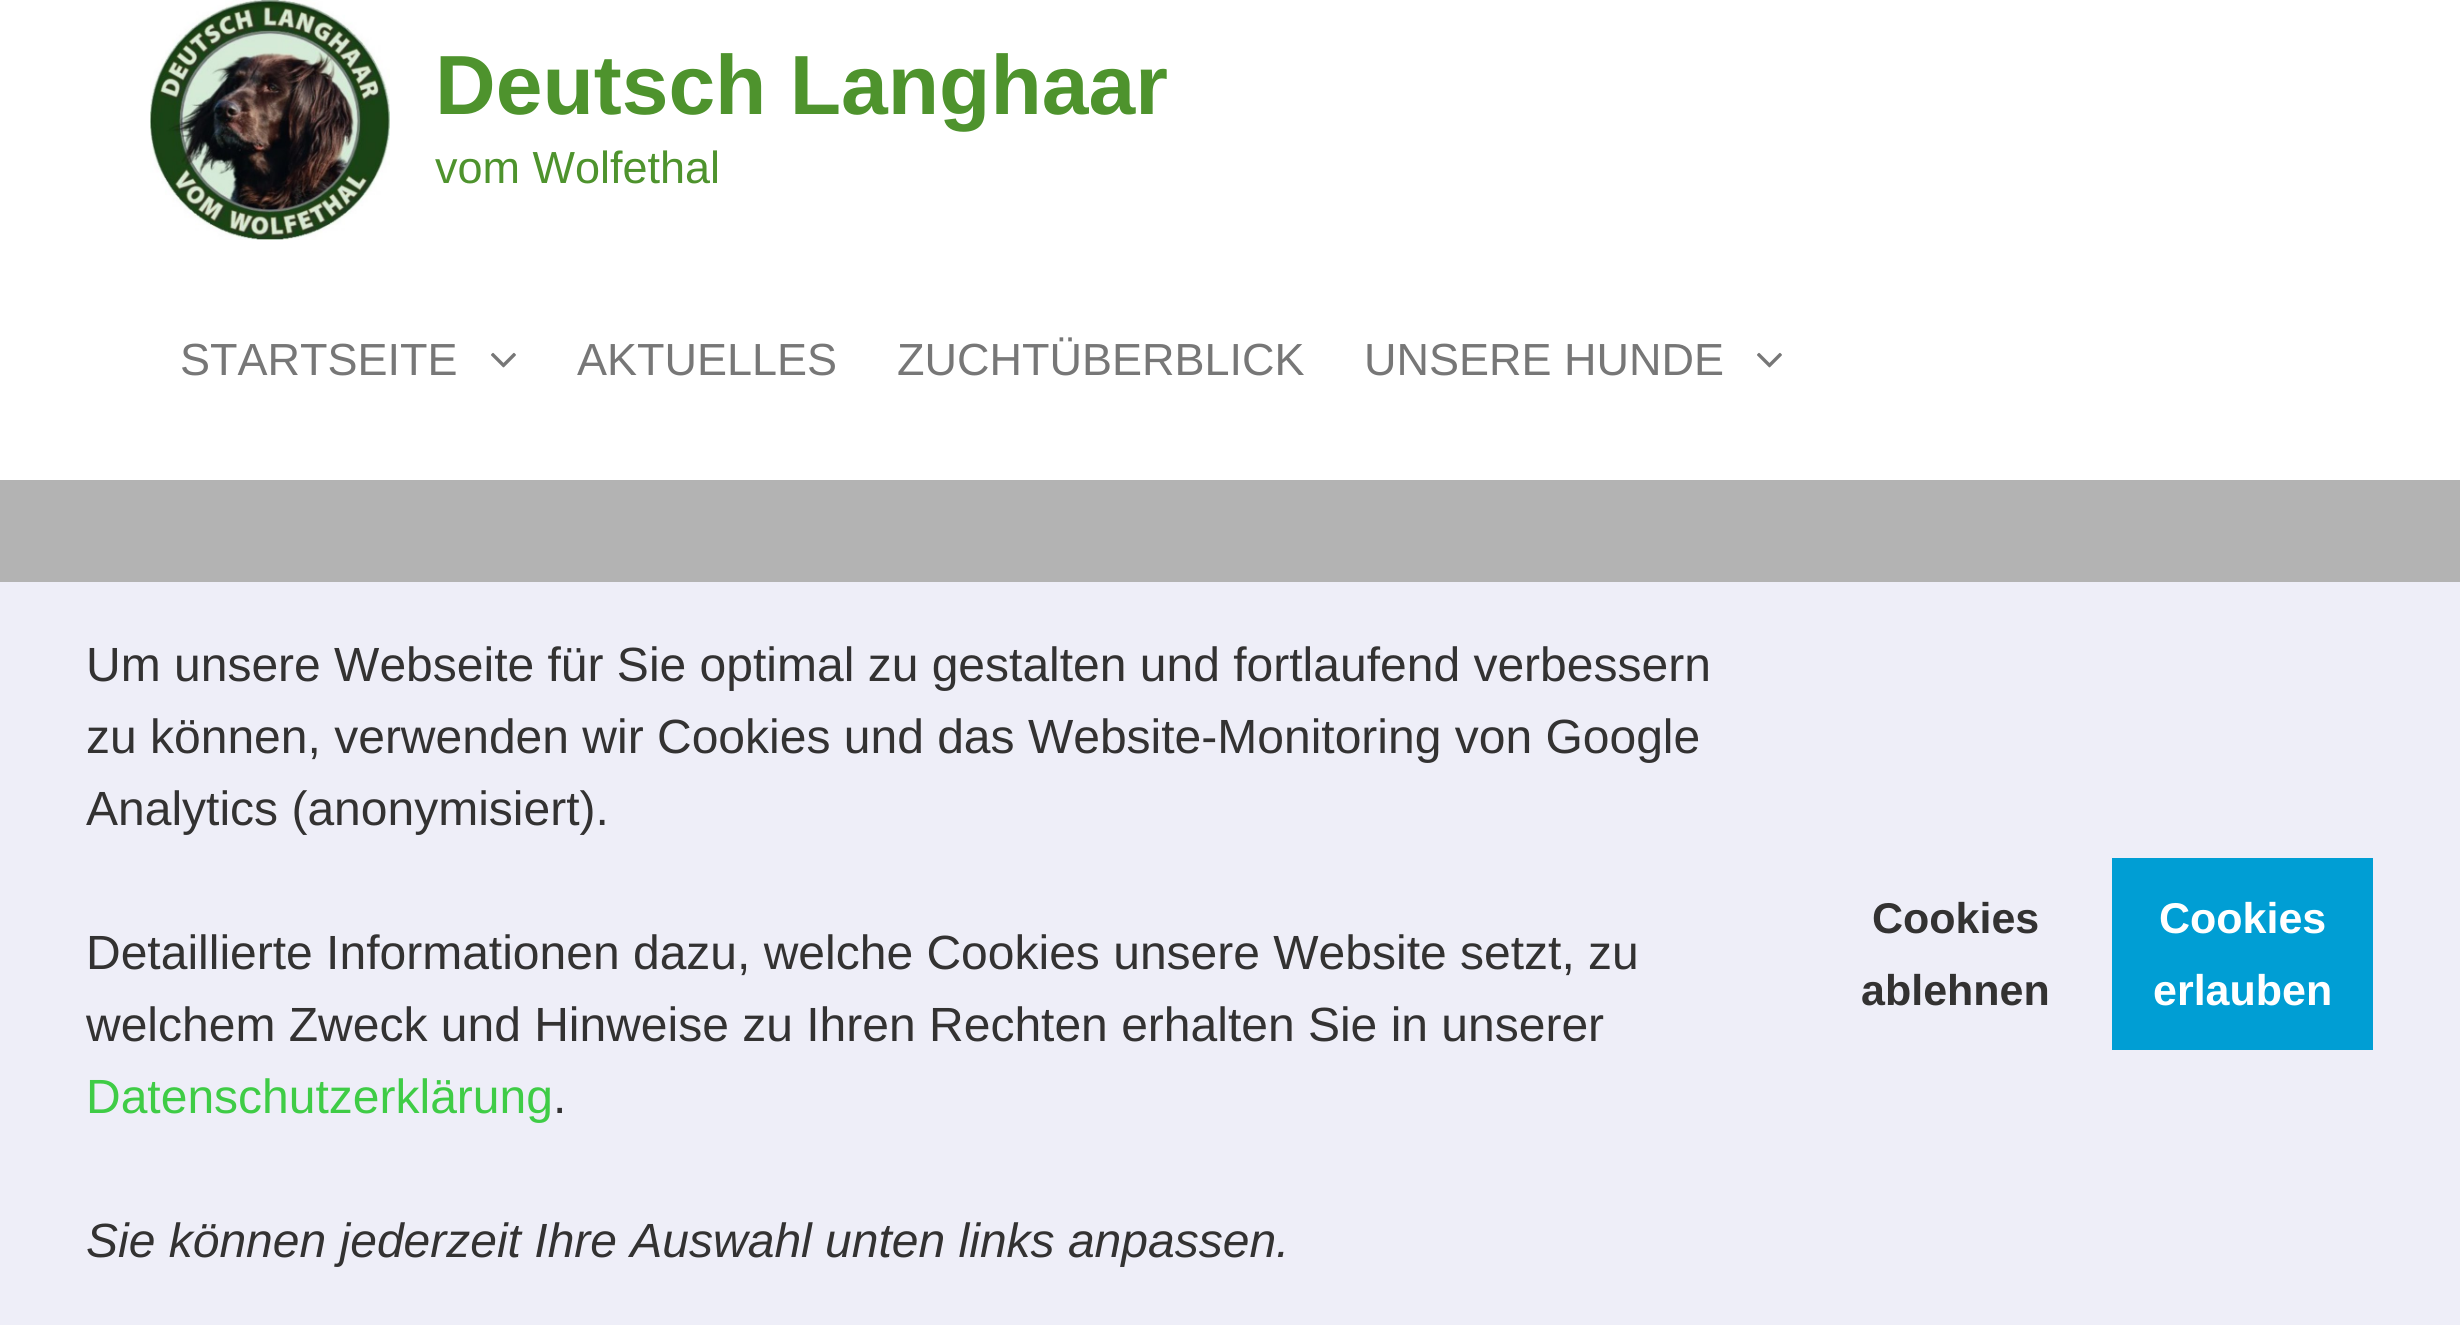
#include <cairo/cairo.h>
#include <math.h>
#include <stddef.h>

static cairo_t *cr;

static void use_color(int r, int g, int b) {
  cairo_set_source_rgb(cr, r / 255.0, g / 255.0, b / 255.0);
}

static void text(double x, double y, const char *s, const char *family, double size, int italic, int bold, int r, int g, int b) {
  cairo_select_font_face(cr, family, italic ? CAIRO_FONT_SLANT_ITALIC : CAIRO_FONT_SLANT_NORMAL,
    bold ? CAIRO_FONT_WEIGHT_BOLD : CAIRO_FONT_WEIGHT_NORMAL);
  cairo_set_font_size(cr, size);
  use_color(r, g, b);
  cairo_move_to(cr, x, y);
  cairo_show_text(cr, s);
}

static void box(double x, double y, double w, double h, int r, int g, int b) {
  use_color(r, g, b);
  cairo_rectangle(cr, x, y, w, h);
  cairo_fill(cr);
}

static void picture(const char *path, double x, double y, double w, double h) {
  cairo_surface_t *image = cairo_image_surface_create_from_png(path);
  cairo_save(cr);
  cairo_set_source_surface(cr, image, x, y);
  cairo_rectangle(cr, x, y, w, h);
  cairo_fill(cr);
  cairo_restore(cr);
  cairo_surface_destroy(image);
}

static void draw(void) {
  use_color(255, 255, 255);
  cairo_paint(cr);
  picture("img_01.png", 150, 0, 240, 240);
  picture("img_02.png", 491, 352, 25, 16);
  picture("img_02.png", 1757, 352, 25, 16);
  box(0, 480, 2460, 102, 179, 179, 179);
  box(0, 582, 2460, 743, 238, 238, 248);
  box(2112, 858, 261, 192, 0, 158, 212);
  text(435, 114, "Deutsch Langhaar", "Liberation Sans", 84, 0, 1, 78, 147, 45);
  text(435, 183, "vom Wolfethal", "Liberation Sans", 45, 0, 0, 78, 147, 45);
  text(180, 375, "STARTSEITE", "Liberation Sans", 45, 0, 0, 119, 119, 119);
  text(577, 375, "AKTUELLES", "Liberation Sans", 45, 0, 0, 119, 119, 119);
  text(897, 375, "ZUCHTÜBERBLICK", "Liberation Sans", 45, 0, 0, 119, 119, 119);
  text(1364, 375, "UNSERE HUNDE", "Liberation Sans", 45, 0, 0, 119, 119, 119);
  text(86, 681, "Um unsere Webseite für Sie optimal zu gestalten und fortlaufend verbessern", "Liberation Sans", 48, 0, 0, 51, 50, 50);
  text(86, 753, "zu können, verwenden wir Cookies und das Website-Monitoring von Google", "Liberation Sans", 48, 0, 0, 51, 50, 50);
  text(86, 825, "Analytics (anonymisiert).", "Liberation Sans", 48, 0, 0, 51, 50, 50);
  text(86, 969, "Detaillierte Informationen dazu, welche Cookies unsere Website setzt, zu", "Liberation Sans", 48, 0, 0, 51, 50, 50);
  text(86, 1041, "welchem Zweck und Hinweise zu Ihren Rechten erhalten Sie in unserer", "Liberation Sans", 48, 0, 0, 51, 50, 50);
  text(86, 1113, "Datenschutzerklärung", "Liberation Sans", 48, 0, 0, 63, 204, 70);
  text(553, 1113, ".", "Liberation Sans", 48, 0, 0, 51, 50, 50);
  text(86, 1257, "Sie können jederzeit Ihre Auswahl unten links anpassen.", "Liberation Sans", 48, 1, 0, 51, 50, 50);
  text(1872, 933, "Cookies", "Liberation Sans", 43, 0, 1, 51, 50, 50);
  text(1861, 1005, "ablehnen", "Liberation Sans", 43, 0, 1, 51, 50, 50);
  text(2159, 933, "Cookies", "Liberation Sans", 43, 0, 1, 255, 255, 255);
  text(2153, 1005, "erlauben", "Liberation Sans", 43, 0, 1, 255, 255, 255);
}

int main(void) {
  cairo_surface_t *surface = cairo_image_surface_create(CAIRO_FORMAT_RGB24, 2460, 1325);
  cr = cairo_create(surface);
  cairo_font_options_t *options = cairo_font_options_create();
  cairo_font_options_set_hint_metrics(options, CAIRO_HINT_METRICS_OFF);
  cairo_font_options_set_hint_style(options, CAIRO_HINT_STYLE_NONE);
  cairo_set_font_options(cr, options);
  cairo_set_miter_limit(cr, 4);
  draw();
  cairo_surface_write_to_png(surface, "out.png");
  cairo_font_options_destroy(options);
  cairo_destroy(cr);
  cairo_surface_destroy(surface);
  return 0;
}
